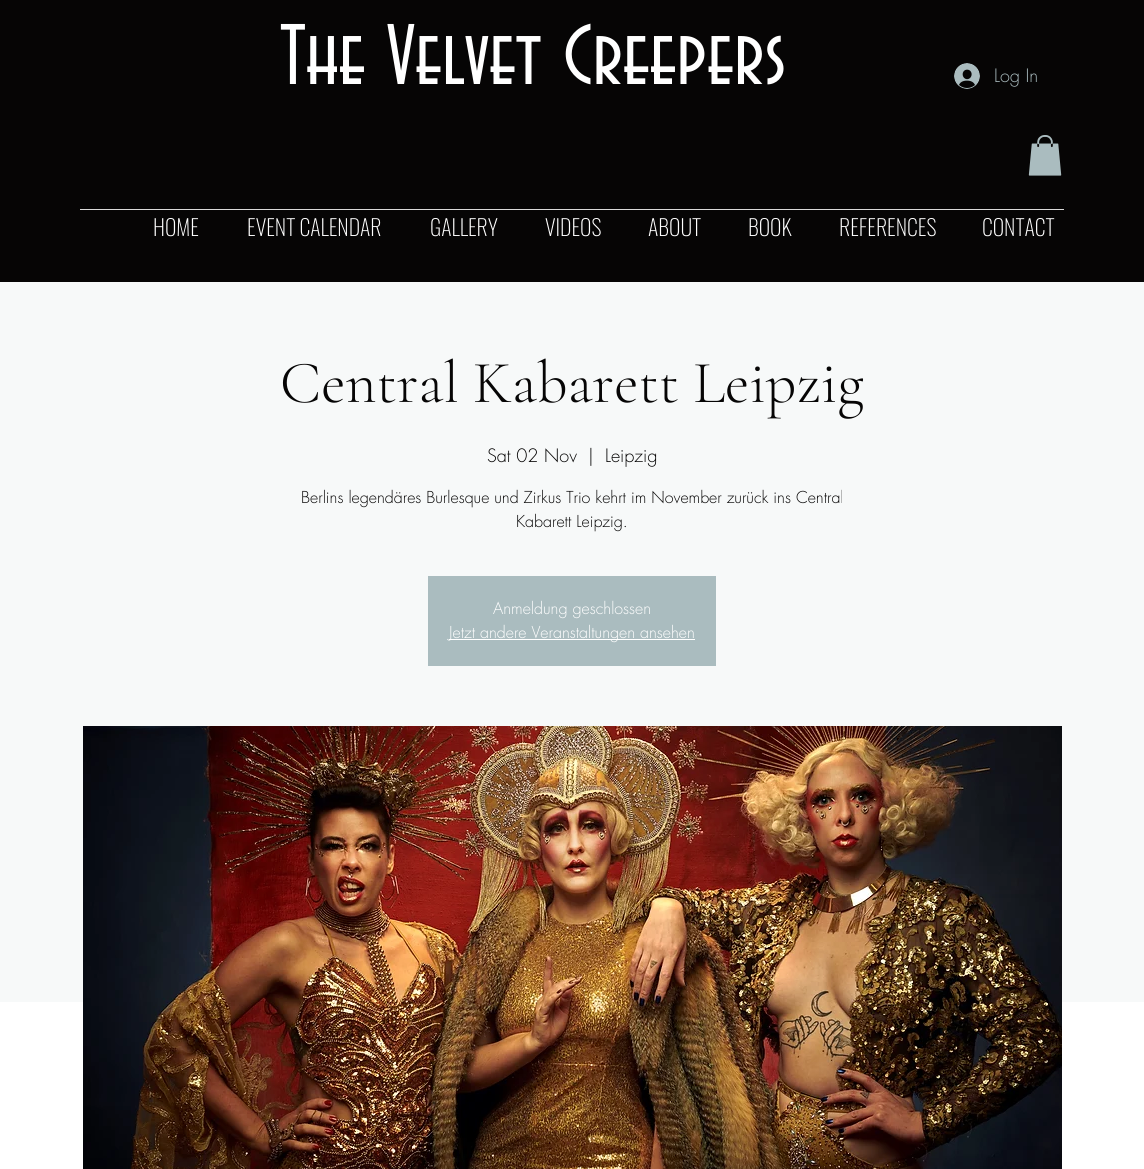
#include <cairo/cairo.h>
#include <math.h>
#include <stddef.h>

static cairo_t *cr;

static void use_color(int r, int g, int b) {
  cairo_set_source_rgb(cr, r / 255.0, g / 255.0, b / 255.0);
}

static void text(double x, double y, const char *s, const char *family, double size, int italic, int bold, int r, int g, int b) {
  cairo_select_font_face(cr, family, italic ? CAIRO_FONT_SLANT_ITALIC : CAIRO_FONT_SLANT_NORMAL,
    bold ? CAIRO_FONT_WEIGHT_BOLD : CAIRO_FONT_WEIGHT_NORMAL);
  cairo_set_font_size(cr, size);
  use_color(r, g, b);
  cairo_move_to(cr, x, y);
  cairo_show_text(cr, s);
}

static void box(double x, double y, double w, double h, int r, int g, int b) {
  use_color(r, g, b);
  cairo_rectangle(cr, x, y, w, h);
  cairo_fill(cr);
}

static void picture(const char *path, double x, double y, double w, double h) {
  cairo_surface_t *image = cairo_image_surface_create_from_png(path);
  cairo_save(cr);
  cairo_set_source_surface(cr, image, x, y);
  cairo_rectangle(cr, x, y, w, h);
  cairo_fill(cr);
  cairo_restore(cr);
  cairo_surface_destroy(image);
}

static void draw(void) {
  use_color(6, 5, 5);
  cairo_paint(cr);
  picture("img_01.png", 954, 63, 26, 26);
  picture("img_02.png", 1028, 135, 34, 41);
  box(80, 209, 984, 1, 218, 218, 218);
  box(0, 282, 1144, 720, 247, 249, 249);
  box(428, 576, 288, 90, 170, 188, 191);
  box(449, 639, 246, 1, 255, 255, 255);
  box(0, 1002, 1144, 167, 255, 255, 255);
  picture("img_03.png", 83, 726, 979, 443);
  text(280, 84, "The Velvet Creepers", "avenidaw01", 90, 0, 0, 255, 255, 255);
  text(994, 82, "Log In", "futura Light", 18, 0, 0, 170, 188, 191);
  text(153, 236, "HOME", "Oswald ExtraLight", 22, 0, 0, 255, 255, 255);
  text(247, 236, "EVENT CALENDAR", "Oswald ExtraLight", 22, 0, 0, 255, 255, 255);
  text(430, 236, "GALLERY", "Oswald ExtraLight", 22, 0, 0, 255, 255, 255);
  text(545, 236, "VIDEOS", "Oswald ExtraLight", 22, 0, 0, 255, 255, 255);
  text(648, 236, "ABOUT", "Oswald ExtraLight", 22, 0, 0, 255, 255, 255);
  text(748, 236, "BOOK", "Oswald ExtraLight", 22, 0, 0, 255, 255, 255);
  text(839, 236, "REFERENCES", "Oswald ExtraLight", 22, 0, 0, 255, 255, 255);
  text(982, 236, "CONTACT", "Oswald ExtraLight", 22, 0, 0, 255, 255, 255);
  text(280, 402, "Central Kabarett Leipzig", "Cormorant Garamond Light", 60, 0, 0, 6, 5, 5);
  text(487, 462, "Sat 02 Nov", "futura Light", 18, 0, 0, 6, 5, 5);
  text(588, 462, "|", "futura Light", 18, 0, 0, 6, 5, 5);
  text(605, 462, "Leipzig", "futura Light", 18, 0, 0, 6, 5, 5);
  text(301, 503, "Berlins legendäres Burlesque und Zirkus Trio kehrt im November zurück ins Central", "futura Light", 16, 0, 0, 6, 5, 5);
  text(516, 527, "Kabarett Leipzig.", "futura Light", 16, 0, 0, 6, 5, 5);
  text(493, 614, "Anmeldung geschlossen", "futura Light", 16, 0, 0, 255, 255, 255);
  text(449, 638, "Jetzt andere Veranstaltungen ansehen", "futura Light", 16, 0, 0, 255, 255, 255);
}

int main(void) {
  cairo_surface_t *surface = cairo_image_surface_create(CAIRO_FORMAT_RGB24, 1144, 1169);
  cr = cairo_create(surface);
  cairo_font_options_t *options = cairo_font_options_create();
  cairo_font_options_set_hint_metrics(options, CAIRO_HINT_METRICS_OFF);
  cairo_font_options_set_hint_style(options, CAIRO_HINT_STYLE_NONE);
  cairo_set_font_options(cr, options);
  cairo_set_miter_limit(cr, 4);
  draw();
  cairo_surface_write_to_png(surface, "out.png");
  cairo_font_options_destroy(options);
  cairo_destroy(cr);
  cairo_surface_destroy(surface);
  return 0;
}
